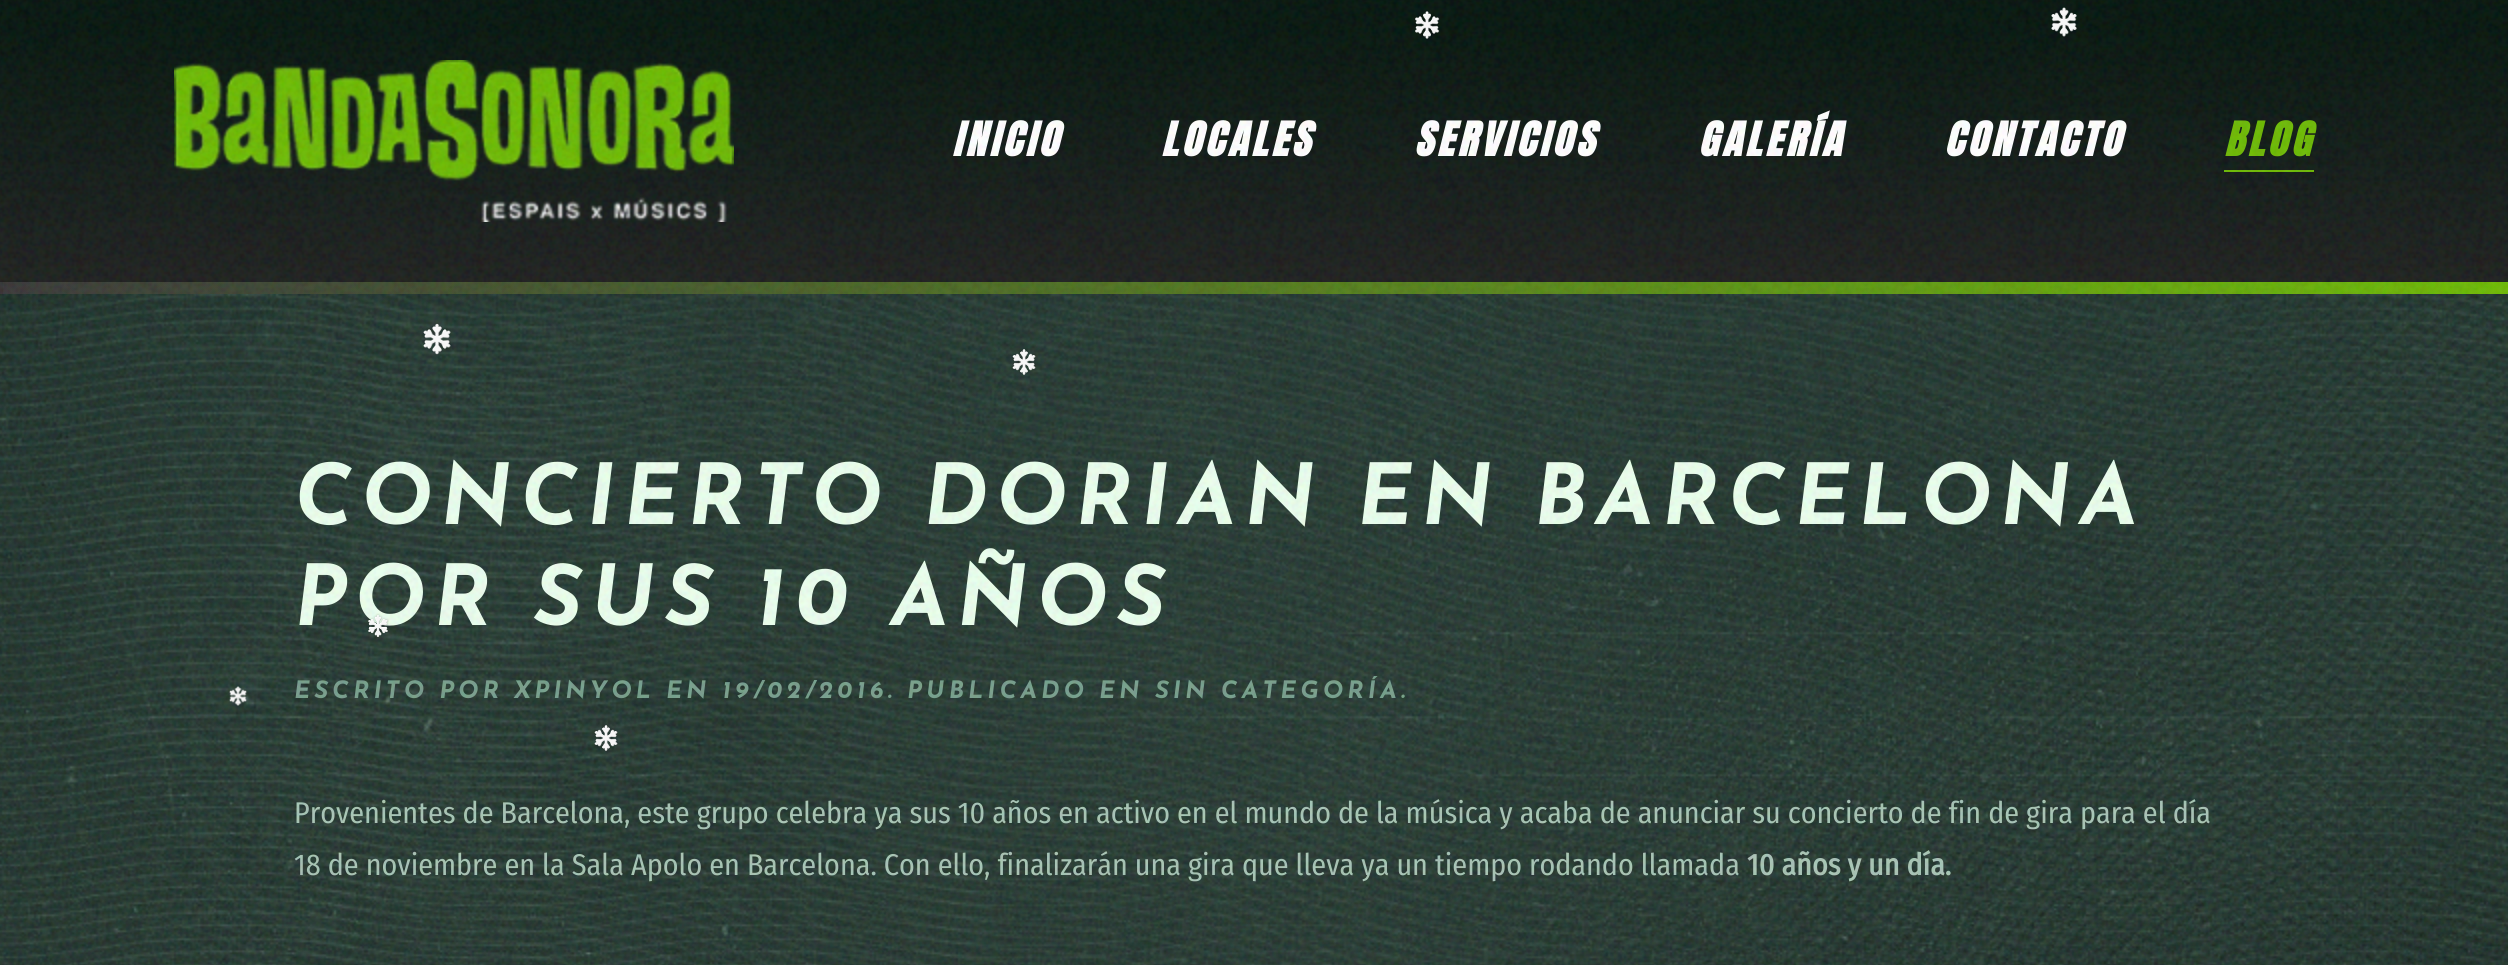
#include <cairo/cairo.h>
#include <math.h>
#include <stddef.h>

static cairo_t *cr;

static void use_color(int r, int g, int b) {
  cairo_set_source_rgb(cr, r / 255.0, g / 255.0, b / 255.0);
}

static void text(double x, double y, const char *s, const char *family, double size, int italic, int bold, int r, int g, int b) {
  cairo_select_font_face(cr, family, italic ? CAIRO_FONT_SLANT_ITALIC : CAIRO_FONT_SLANT_NORMAL,
    bold ? CAIRO_FONT_WEIGHT_BOLD : CAIRO_FONT_WEIGHT_NORMAL);
  cairo_set_font_size(cr, size);
  use_color(r, g, b);
  cairo_move_to(cr, x, y);
  cairo_show_text(cr, s);
}

static void spaced_text(double x, double y, const char *s, double letter, double word) {
  cairo_move_to(cr, x, y);
  while (*s) {
    char ch[5] = {0};
    int n = 0;
    do ch[n++] = *s++; while ((*s & 0xC0) == 0x80);
    cairo_show_text(cr, ch);
    cairo_rel_move_to(cr, letter + word * (*ch == ' '), 0);
  }
}

static void box(double x, double y, double w, double h, int r, int g, int b) {
  use_color(r, g, b);
  cairo_rectangle(cr, x, y, w, h);
  cairo_fill(cr);
}

static void picture(const char *path, double x, double y, double w, double h) {
  cairo_surface_t *image = cairo_image_surface_create_from_png(path);
  cairo_save(cr);
  cairo_set_source_surface(cr, image, x, y);
  cairo_rectangle(cr, x, y, w, h);
  cairo_fill(cr);
  cairo_restore(cr);
  cairo_surface_destroy(image);
}

static void draw(void) {
  cairo_pattern_t *gradient;
  use_color(255, 255, 255);
  cairo_paint(cr);
  picture("img_04.png", 0, 282, 3, 12);
  gradient = cairo_pattern_create_linear(1254, 0, 1254, 282);
  cairo_pattern_add_color_stop_rgba(gradient, 0.1, 0.012, 0.075, 0.047, 1);
  cairo_pattern_add_color_stop_rgba(gradient, 1, 0.106, 0.114, 0.11, 1);
  cairo_set_source(cr, gradient);
  cairo_pattern_destroy(gradient);
  cairo_rectangle(cr, 0, 0, 2508, 282);
  cairo_fill(cr);
  picture("img_05.png", 174, 60, 560, 162);
  box(2224, 170, 90, 2, 107, 185, 2);
  picture("img_06.png", 3, 282, 2505, 12);
  picture("img_07.png", 0, 294, 2508, 671);
  cairo_select_font_face(cr, "Anton", CAIRO_FONT_SLANT_ITALIC, CAIRO_FONT_WEIGHT_BOLD);
  cairo_set_font_size(cr, 40);
  use_color(255, 255, 255);
  spaced_text(952, 156, "INICIO", 4, 0);
  spaced_text(1161, 156, "LOCALES", 4, 0);
  spaced_text(1414, 156, "SERVICIOS", 4, 0);
  spaced_text(1698, 156, "GALERÍA", 4, 0);
  spaced_text(1944, 156, "CONTACTO", 4, 0);
  use_color(107, 185, 2);
  spaced_text(2224, 156, "BLOG", 4, 0);
  cairo_select_font_face(cr, "Josefin Sans Thin", CAIRO_FONT_SLANT_ITALIC, CAIRO_FONT_WEIGHT_NORMAL);
  cairo_set_font_size(cr, 84);
  use_color(234, 255, 237);
  spaced_text(294, 524, "CONCIERTO DORIAN EN BARCELONA", 8, 0);
  spaced_text(294, 625, "POR SUS 10 AÑOS", 8, 0);
  cairo_set_font_size(cr, 24);
  use_color(118, 158, 139);
  spaced_text(294, 698, "ESCRITO POR", 4, 0);
  spaced_text(514, 698, "XPINYOL", 4, 0);
  spaced_text(666, 698, "EN", 4, 0);
  spaced_text(722, 698, "19/02/2016.", 4, 0);
  spaced_text(907, 698, "PUBLICADO EN SIN CATEGORÍA.", 4, 0);
  text(294, 823, "Provenientes de Barcelona, este grupo celebra ya sus 10 años en activo en el mundo de la música y acaba de anunciar su concierto de fin de gira para el día", "Fira Sans Condensed", 30, 0, 0, 167, 196, 180);
  text(294, 875, "18 de noviembre en la Sala Apolo en Barcelona. Con ello, finalizarán una gira que lleva ya un tiempo rodando llamada", "Fira Sans Condensed", 30, 0, 0, 167, 196, 180);
  text(1747, 875, "10 años y un día.", "Fira Sans Condensed", 30, 0, 1, 167, 196, 180);
  picture("img_01.png", 0, 0, 2508, 965);
  picture("img_03.png", 2051, 7, 26, 30);
  picture("img_02.png", 1415, 11, 25, 28);
  picture("img_08.png", 423, 323, 28, 32);
  picture("img_09.png", 1012, 349, 24, 26);
  picture("img_10.png", 368, 613, 21, 25);
  picture("img_11.png", 229, 686, 18, 20);
  picture("img_12.png", 594, 725, 24, 26);
}

int main(void) {
  cairo_surface_t *surface = cairo_image_surface_create(CAIRO_FORMAT_RGB24, 2508, 965);
  cr = cairo_create(surface);
  cairo_font_options_t *options = cairo_font_options_create();
  cairo_font_options_set_hint_metrics(options, CAIRO_HINT_METRICS_OFF);
  cairo_font_options_set_hint_style(options, CAIRO_HINT_STYLE_NONE);
  cairo_set_font_options(cr, options);
  cairo_set_miter_limit(cr, 4);
  draw();
  cairo_surface_write_to_png(surface, "out.png");
  cairo_font_options_destroy(options);
  cairo_destroy(cr);
  cairo_surface_destroy(surface);
  return 0;
}
